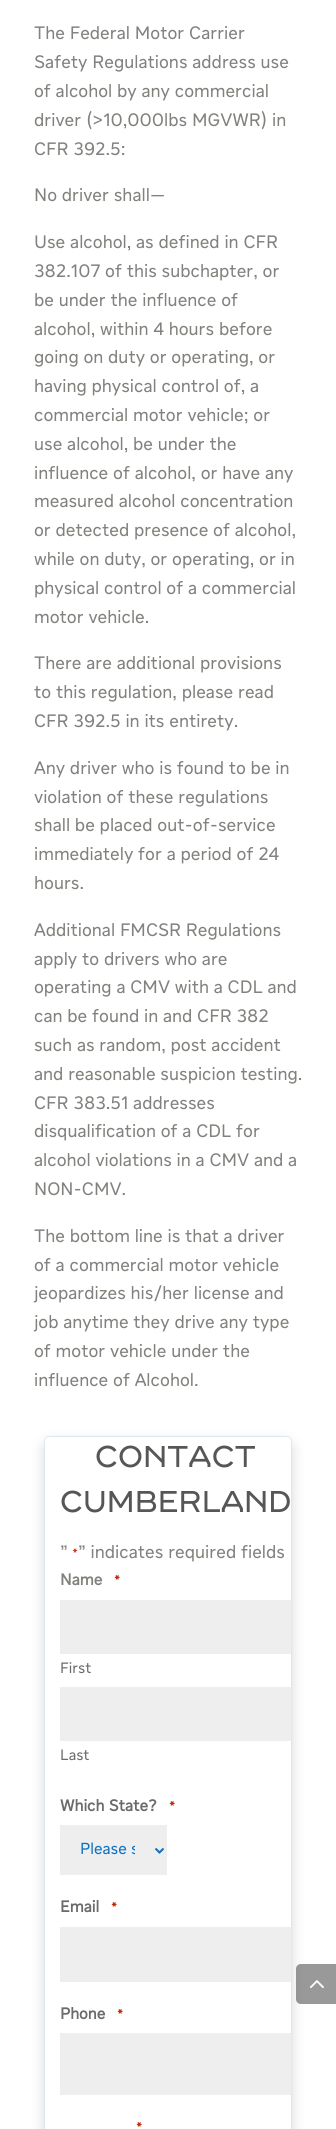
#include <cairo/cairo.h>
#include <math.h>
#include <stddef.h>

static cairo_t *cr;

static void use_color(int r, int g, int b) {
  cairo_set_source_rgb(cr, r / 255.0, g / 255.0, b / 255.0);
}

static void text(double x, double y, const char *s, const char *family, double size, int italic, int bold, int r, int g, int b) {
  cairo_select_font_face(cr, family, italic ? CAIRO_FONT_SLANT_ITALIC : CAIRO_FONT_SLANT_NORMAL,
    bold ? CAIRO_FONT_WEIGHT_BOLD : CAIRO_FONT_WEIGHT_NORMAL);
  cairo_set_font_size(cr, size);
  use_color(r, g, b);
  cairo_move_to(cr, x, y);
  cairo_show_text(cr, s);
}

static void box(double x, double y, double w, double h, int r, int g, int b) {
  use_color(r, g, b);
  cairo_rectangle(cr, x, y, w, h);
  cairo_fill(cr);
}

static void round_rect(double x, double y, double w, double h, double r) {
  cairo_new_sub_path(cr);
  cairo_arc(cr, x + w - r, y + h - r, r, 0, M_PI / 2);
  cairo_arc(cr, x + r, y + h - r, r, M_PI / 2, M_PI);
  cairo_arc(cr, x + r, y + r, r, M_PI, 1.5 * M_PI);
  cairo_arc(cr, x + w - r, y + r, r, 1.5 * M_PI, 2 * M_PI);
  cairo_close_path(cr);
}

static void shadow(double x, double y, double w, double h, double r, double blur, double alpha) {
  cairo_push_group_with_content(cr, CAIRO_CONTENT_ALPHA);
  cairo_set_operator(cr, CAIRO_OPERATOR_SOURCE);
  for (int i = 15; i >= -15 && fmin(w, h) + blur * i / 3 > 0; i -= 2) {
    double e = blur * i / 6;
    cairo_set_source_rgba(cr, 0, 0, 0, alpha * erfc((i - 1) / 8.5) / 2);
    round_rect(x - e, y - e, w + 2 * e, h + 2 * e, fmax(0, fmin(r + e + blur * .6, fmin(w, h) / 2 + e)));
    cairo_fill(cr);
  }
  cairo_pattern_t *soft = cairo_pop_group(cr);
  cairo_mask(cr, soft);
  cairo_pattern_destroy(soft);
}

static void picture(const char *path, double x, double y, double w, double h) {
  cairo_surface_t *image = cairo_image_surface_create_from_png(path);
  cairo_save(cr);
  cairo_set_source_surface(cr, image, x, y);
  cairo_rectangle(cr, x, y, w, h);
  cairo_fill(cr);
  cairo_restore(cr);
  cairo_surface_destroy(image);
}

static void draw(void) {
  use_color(255, 255, 255);
  cairo_paint(cr);
  cairo_save(cr);
  cairo_set_fill_rule(cr, CAIRO_FILL_RULE_EVEN_ODD);
  cairo_new_path(cr);
  cairo_move_to(cr, 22, 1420);
  cairo_line_to(cr, 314, 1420);
  cairo_line_to(cr, 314, 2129);
  cairo_line_to(cr, 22, 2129);
  cairo_close_path(cr);
  cairo_move_to(cr, 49, 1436);
  cairo_line_to(cr, 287, 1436);
  cairo_curve_to(cr, 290, 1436, 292, 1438, 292, 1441);
  cairo_line_to(cr, 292, 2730);
  cairo_curve_to(cr, 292, 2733, 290, 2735, 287, 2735);
  cairo_line_to(cr, 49, 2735);
  cairo_curve_to(cr, 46, 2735, 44, 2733, 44, 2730);
  cairo_line_to(cr, 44, 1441);
  cairo_curve_to(cr, 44, 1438, 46, 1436, 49, 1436);
  cairo_close_path(cr);
  cairo_clip(cr);
  use_color(0, 0, 0);
  shadow(50, 1448, 236, 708, 0, 9, 0.3);
  cairo_restore(cr);
  round_rect(44.5, 1436.5, 247, 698, 4.5);
  use_color(223, 232, 239);
  cairo_set_line_width(cr, 1);
  cairo_stroke(cr);
  box(60, 1600, 231, 54, 238, 238, 238);
  box(60, 1687, 231, 54, 238, 238, 238);
  box(60, 1825, 107, 50, 238, 238, 238);
  cairo_new_path(cr);
  cairo_move_to(cr, 155.5, 1848.5);
  cairo_line_to(cr, 159.5, 1852.5);
  cairo_line_to(cr, 163.5, 1848.5);
  use_color(12, 113, 195);
  cairo_set_line_width(cr, 2);
  cairo_stroke(cr);
  box(60, 1927, 231, 55, 238, 238, 238);
  box(60, 2033, 231, 62, 238, 238, 238);
  cairo_set_source_rgba(cr, 0, 0, 0, 0.4);
  cairo_new_path(cr);
  cairo_move_to(cr, 301, 1964);
  cairo_line_to(cr, 336, 1964);
  cairo_line_to(cr, 336, 2004);
  cairo_line_to(cr, 301, 2004);
  cairo_curve_to(cr, 298, 2004, 296, 2002, 296, 1999);
  cairo_line_to(cr, 296, 1969);
  cairo_curve_to(cr, 296, 1966, 298, 1964, 301, 1964);
  cairo_close_path(cr);
  cairo_fill(cr);
  picture("img_01.png", 310, 1980, 14, 8);
  text(34, 39, "The Federal Motor Carrier", "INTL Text", 18, 0, 0, 130, 129, 125);
  text(34, 68, "Safety Regulations address use", "INTL Text", 18, 0, 0, 130, 129, 125);
  text(34, 97, "of alcohol by any commercial", "INTL Text", 18, 0, 0, 130, 129, 125);
  text(34, 126, "driver (>10,000lbs MGVWR) in", "INTL Text", 18, 0, 0, 130, 129, 125);
  text(34, 155, "CFR 392.5:", "INTL Text", 18, 0, 0, 130, 129, 125);
  text(34, 201, "No driver shall—", "INTL Text", 18, 0, 0, 130, 129, 125);
  text(34, 248, "Use alcohol, as defined in CFR", "INTL Text", 18, 0, 0, 130, 129, 125);
  text(34, 277, "382.107 of this subchapter, or", "INTL Text", 18, 0, 0, 130, 129, 125);
  text(34, 306, "be under the influence of", "INTL Text", 18, 0, 0, 130, 129, 125);
  text(34, 335, "alcohol, within 4 hours before", "INTL Text", 18, 0, 0, 130, 129, 125);
  text(34, 363, "going on duty or operating, or", "INTL Text", 18, 0, 0, 130, 129, 125);
  text(34, 392, "having physical control of, a", "INTL Text", 18, 0, 0, 130, 129, 125);
  text(34, 421, "commercial motor vehicle; or", "INTL Text", 18, 0, 0, 130, 129, 125);
  text(34, 450, "use alcohol, be under the", "INTL Text", 18, 0, 0, 130, 129, 125);
  text(34, 479, "influence of alcohol, or have any", "INTL Text", 18, 0, 0, 130, 129, 125);
  text(34, 507, "measured alcohol concentration", "INTL Text", 18, 0, 0, 130, 129, 125);
  text(34, 536, "or detected presence of alcohol,", "INTL Text", 18, 0, 0, 130, 129, 125);
  text(34, 565, "while on duty, or operating, or in", "INTL Text", 18, 0, 0, 130, 129, 125);
  text(34, 594, "physical control of a commercial", "INTL Text", 18, 0, 0, 130, 129, 125);
  text(34, 623, "motor vehicle.", "INTL Text", 18, 0, 0, 130, 129, 125);
  text(34, 669, "There are additional provisions", "INTL Text", 18, 0, 0, 130, 129, 125);
  text(34, 698, "to this regulation, please read", "INTL Text", 18, 0, 0, 130, 129, 125);
  text(34, 727, "CFR 392.5 in its entirety.", "INTL Text", 18, 0, 0, 130, 129, 125);
  text(34, 774, "Any driver who is found to be in", "INTL Text", 18, 0, 0, 130, 129, 125);
  text(34, 803, "violation of these regulations", "INTL Text", 18, 0, 0, 130, 129, 125);
  text(34, 831, "shall be placed out-of-service", "INTL Text", 18, 0, 0, 130, 129, 125);
  text(34, 860, "immediately for a period of 24", "INTL Text", 18, 0, 0, 130, 129, 125);
  text(34, 889, "hours.", "INTL Text", 18, 0, 0, 130, 129, 125);
  text(34, 936, "Additional FMCSR Regulations", "INTL Text", 18, 0, 0, 130, 129, 125);
  text(34, 965, "apply to drivers who are", "INTL Text", 18, 0, 0, 130, 129, 125);
  text(34, 993, "operating a CMV with a CDL and", "INTL Text", 18, 0, 0, 130, 129, 125);
  text(34, 1022, "can be found in and CFR 382", "INTL Text", 18, 0, 0, 130, 129, 125);
  text(34, 1051, "such as random, post accident", "INTL Text", 18, 0, 0, 130, 129, 125);
  text(34, 1080, "and reasonable suspicion testing.", "INTL Text", 18, 0, 0, 130, 129, 125);
  text(34, 1109, "CFR 383.51 addresses", "INTL Text", 18, 0, 0, 130, 129, 125);
  text(34, 1137, "disqualification of a CDL for", "INTL Text", 18, 0, 0, 130, 129, 125);
  text(34, 1166, "alcohol violations in a CMV and a", "INTL Text", 18, 0, 0, 130, 129, 125);
  text(34, 1195, "NON-CMV.", "INTL Text", 18, 0, 0, 130, 129, 125);
  text(34, 1242, "The bottom line is that a driver", "INTL Text", 18, 0, 0, 130, 129, 125);
  text(34, 1271, "of a commercial motor vehicle", "INTL Text", 18, 0, 0, 130, 129, 125);
  text(34, 1299, "jeopardizes his/her license and", "INTL Text", 18, 0, 0, 130, 129, 125);
  text(34, 1328, "job anytime they drive any type", "INTL Text", 18, 0, 0, 130, 129, 125);
  text(34, 1357, "of motor vehicle under the", "INTL Text", 18, 0, 0, 130, 129, 125);
  text(34, 1386, "influence of Alcohol.", "INTL Text", 18, 0, 0, 130, 129, 125);
  text(95, 1467, "CONTACT", "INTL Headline", 30, 0, 0, 86, 86, 86);
  text(60, 1512, "CUMBERLAND", "INTL Headline", 30, 0, 0, 86, 86, 86);
  text(60, 1558, "\"", "INTL Text", 18, 0, 0, 130, 129, 125);
  text(72, 1558, "*", "INTL Text", 13, 0, 0, 192, 43, 10);
  text(78, 1558, "\" indicates required fields", "INTL Text", 18, 0, 0, 130, 129, 125);
  text(60, 1585, "Name", "INTL Text", 16, 0, 1, 130, 129, 125);
  text(114, 1585, "*", "INTL Text", 13, 0, 1, 192, 43, 10);
  text(60, 1673, "First", "INTL Text", 15, 0, 0, 107, 107, 107);
  text(60, 1760, "Last", "INTL Text", 15, 0, 0, 107, 107, 107);
  text(60, 1811, "Which State?", "INTL Text", 16, 0, 1, 107, 107, 107);
  text(169, 1811, "*", "INTL Text", 13, 0, 1, 192, 43, 10);
  cairo_save(cr);
  cairo_rectangle(cr, 80, 1841, 55, 18);
  cairo_clip(cr);
  text(80, 1854, "Please s", "INTL Text", 16, 0, 0, 12, 113, 195);
  cairo_restore(cr);
  text(60, 1912, "Email", "INTL Text", 16, 0, 1, 107, 107, 107);
  text(111, 1912, "*", "INTL Text", 13, 0, 1, 192, 43, 10);
  text(60, 2019, "Phone", "INTL Text", 16, 0, 1, 107, 107, 107);
  text(117, 2019, "*", "INTL Text", 13, 0, 1, 192, 43, 10);
  text(136, 2132, "*", "INTL Text", 13, 0, 1, 192, 43, 10);
}

int main(void) {
  cairo_surface_t *surface = cairo_image_surface_create(CAIRO_FORMAT_RGB24, 336, 2129);
  cr = cairo_create(surface);
  cairo_font_options_t *options = cairo_font_options_create();
  cairo_font_options_set_hint_metrics(options, CAIRO_HINT_METRICS_OFF);
  cairo_font_options_set_hint_style(options, CAIRO_HINT_STYLE_NONE);
  cairo_set_font_options(cr, options);
  cairo_set_miter_limit(cr, 4);
  draw();
  cairo_surface_write_to_png(surface, "out.png");
  cairo_font_options_destroy(options);
  cairo_destroy(cr);
  cairo_surface_destroy(surface);
  return 0;
}
